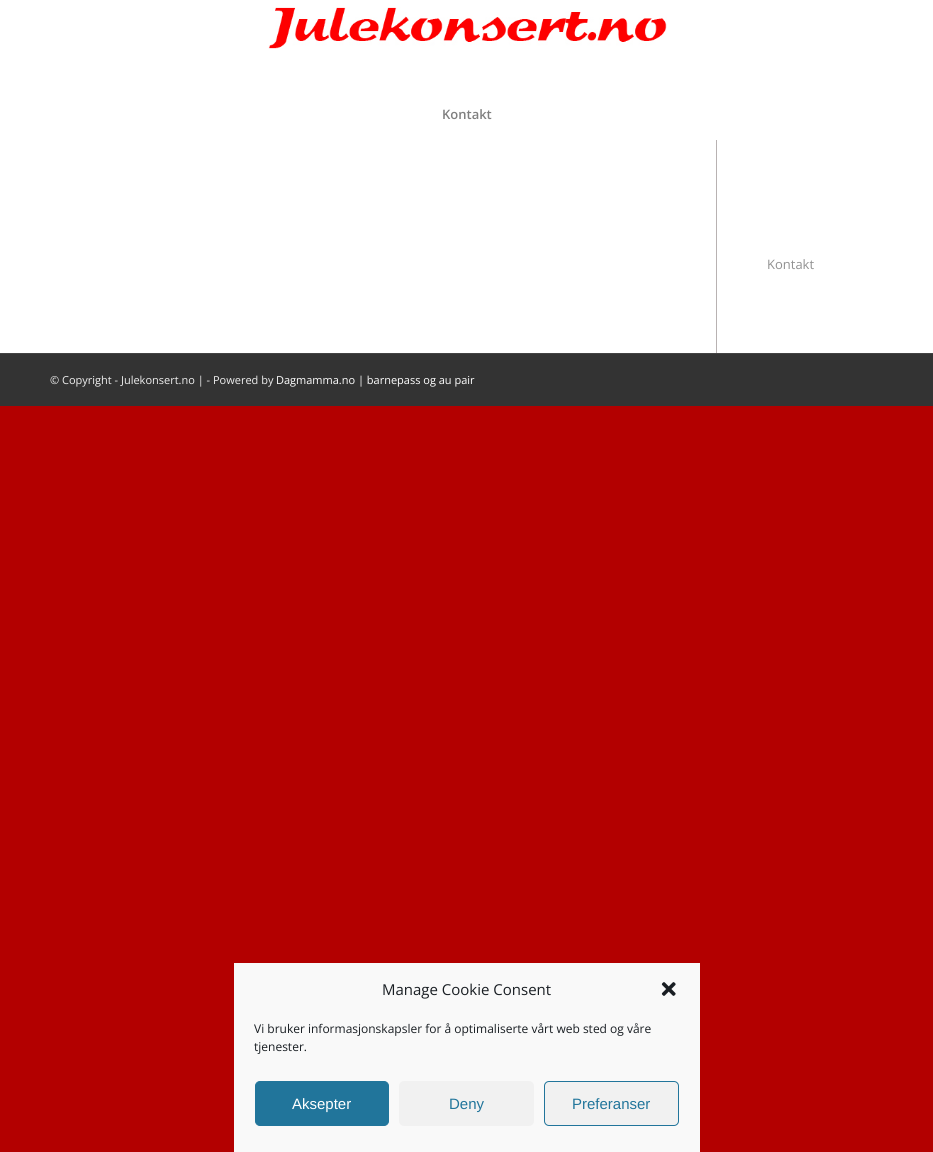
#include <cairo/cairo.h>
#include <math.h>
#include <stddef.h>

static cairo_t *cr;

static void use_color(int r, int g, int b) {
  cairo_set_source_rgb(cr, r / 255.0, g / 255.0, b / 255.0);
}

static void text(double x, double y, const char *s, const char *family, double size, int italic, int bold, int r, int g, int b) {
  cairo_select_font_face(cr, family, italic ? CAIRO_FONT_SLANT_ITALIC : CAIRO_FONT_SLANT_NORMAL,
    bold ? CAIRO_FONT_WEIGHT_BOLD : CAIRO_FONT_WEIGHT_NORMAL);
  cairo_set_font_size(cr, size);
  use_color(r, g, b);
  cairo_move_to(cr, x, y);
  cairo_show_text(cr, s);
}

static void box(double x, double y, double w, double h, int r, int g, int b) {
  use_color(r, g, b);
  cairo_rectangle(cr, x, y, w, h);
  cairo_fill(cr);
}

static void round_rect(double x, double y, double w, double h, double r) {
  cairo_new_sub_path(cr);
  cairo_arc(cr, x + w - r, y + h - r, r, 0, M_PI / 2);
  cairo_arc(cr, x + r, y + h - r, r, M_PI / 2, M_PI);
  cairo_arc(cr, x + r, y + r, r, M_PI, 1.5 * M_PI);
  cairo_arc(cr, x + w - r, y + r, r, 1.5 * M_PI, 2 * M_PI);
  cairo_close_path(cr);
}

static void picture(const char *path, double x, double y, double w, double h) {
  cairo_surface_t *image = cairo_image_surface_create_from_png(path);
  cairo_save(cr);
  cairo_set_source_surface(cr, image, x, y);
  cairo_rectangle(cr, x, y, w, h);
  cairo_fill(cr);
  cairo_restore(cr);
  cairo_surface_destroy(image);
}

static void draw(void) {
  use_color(179, 0, 0);
  cairo_paint(cr);
  box(0, 0, 933, 353, 255, 255, 255);
  picture("img_01.png", 268, 7, 399, 42);
  box(716, 140, 1, 214, 184, 178, 178);
  box(0, 354, 933, 52, 51, 51, 51);
  box(0, 353, 933, 1, 68, 68, 68);
  box(234, 963, 466, 189, 249, 249, 249);
  picture("img_02.png", 661, 982, 15, 14);
  use_color(33, 117, 155);
  round_rect(255.5, 1081.5, 133, 44, 4.5);
  cairo_fill_preserve(cr);
  cairo_set_line_width(cr, 1);
  cairo_stroke(cr);
  use_color(241, 241, 241);
  round_rect(399, 1081, 135, 45, 5);
  cairo_fill(cr);
  round_rect(544.5, 1081.5, 134, 44, 4.5);
  cairo_fill_preserve(cr);
  use_color(33, 117, 155);
  cairo_stroke(cr);
  text(442, 119, "Kontakt", "Open Sans SemiBold", 13, 0, 0, 128, 128, 128);
  text(767, 269, "Kontakt", "Open Sans", 13, 0, 0, 145, 145, 145);
  text(50, 384, "© Copyright - Julekonsert.no | - Powered by", "Open Sans", 11, 0, 0, 238, 238, 238);
  text(276, 384, "Dagmamma.no | barnepass og au pair", "Open Sans", 11, 0, 0, 255, 255, 255);
  text(382, 995, "Manage Cookie Consent", "Open Sans", 15, 0, 0, 25, 30, 35);
  text(254, 1033, "Vi bruker informasjonskapsler for å optimaliserte vårt web sted og våre", "Open Sans", 12, 0, 0, 25, 30, 35);
  text(254, 1051, "tjenester.", "Open Sans", 12, 0, 0, 25, 30, 35);
  text(292, 1109, "Aksepter", "Liberation Sans", 15, 0, 0, 255, 255, 255);
  text(449, 1109, "Deny", "Liberation Sans", 15, 0, 0, 33, 117, 155);
  text(572, 1109, "Preferanser", "Liberation Sans", 15, 0, 0, 33, 117, 155);
}

int main(void) {
  cairo_surface_t *surface = cairo_image_surface_create(CAIRO_FORMAT_RGB24, 933, 1152);
  cr = cairo_create(surface);
  cairo_font_options_t *options = cairo_font_options_create();
  cairo_font_options_set_hint_metrics(options, CAIRO_HINT_METRICS_OFF);
  cairo_font_options_set_hint_style(options, CAIRO_HINT_STYLE_NONE);
  cairo_set_font_options(cr, options);
  cairo_set_miter_limit(cr, 4);
  draw();
  cairo_surface_write_to_png(surface, "out.png");
  cairo_font_options_destroy(options);
  cairo_destroy(cr);
  cairo_surface_destroy(surface);
  return 0;
}
